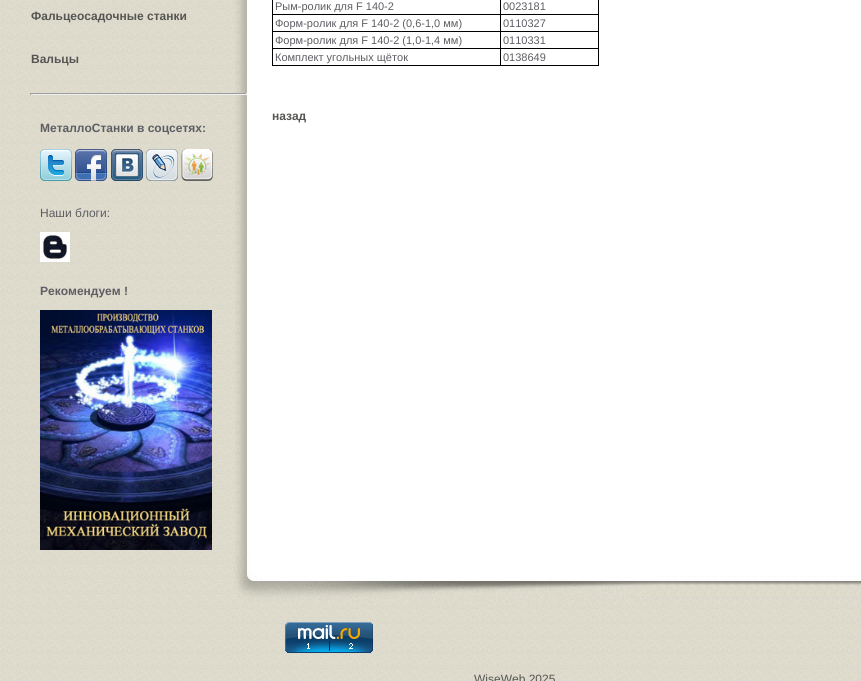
#include <cairo/cairo.h>
#include <math.h>
#include <stddef.h>

static cairo_t *cr;

static void use_color(int r, int g, int b) {
  cairo_set_source_rgb(cr, r / 255.0, g / 255.0, b / 255.0);
}

static void text(double x, double y, const char *s, const char *family, double size, int italic, int bold, int r, int g, int b) {
  cairo_select_font_face(cr, family, italic ? CAIRO_FONT_SLANT_ITALIC : CAIRO_FONT_SLANT_NORMAL,
    bold ? CAIRO_FONT_WEIGHT_BOLD : CAIRO_FONT_WEIGHT_NORMAL);
  cairo_set_font_size(cr, size);
  use_color(r, g, b);
  cairo_move_to(cr, x, y);
  cairo_show_text(cr, s);
}

static void box(double x, double y, double w, double h, int r, int g, int b) {
  use_color(r, g, b);
  cairo_rectangle(cr, x, y, w, h);
  cairo_fill(cr);
}

static void picture(const char *path, double x, double y, double w, double h) {
  cairo_surface_t *image = cairo_image_surface_create_from_png(path);
  cairo_save(cr);
  cairo_set_source_surface(cr, image, x, y);
  cairo_rectangle(cr, x, y, w, h);
  cairo_fill(cr);
  cairo_restore(cr);
  cairo_surface_destroy(image);
}

static void draw(void) {
  use_color(255, 255, 255);
  cairo_paint(cr);
  picture("img_01.png", 0, 0, 861, 681);
  picture("img_02.png", 234, 0, 13, 550);
  box(30, 93, 217, 1, 159, 159, 159);
  box(246, 93, 1, 2, 238, 238, 238);
  box(30, 94, 217, 1, 238, 238, 238);
  box(30, 93, 1, 2, 159, 159, 159);
  picture("img_03.png", 40, 149, 32, 32);
  picture("img_04.png", 75, 149, 32, 32);
  picture("img_05.png", 111, 149, 32, 32);
  picture("img_06.png", 146, 149, 32, 32);
  picture("img_07.png", 181, 149, 32, 32);
  picture("img_08.png", 40, 232, 30, 30);
  picture("img_09.png", 40, 310, 172, 240);
  box(247, 0, 614, 550, 255, 255, 255);
  box(598, 0, 1, 66, 0, 0, 0);
  box(272, 65, 327, 1, 0, 0, 0);
  box(272, 0, 1, 66, 0, 0, 0);
  box(500, 14, 99, 1, 0, 0, 0);
  box(500, 31, 99, 1, 0, 0, 0);
  box(500, 48, 99, 1, 0, 0, 0);
  box(500, 48, 1, 18, 0, 0, 0);
  box(272, 48, 229, 1, 0, 0, 0);
  box(500, 31, 1, 18, 0, 0, 0);
  box(272, 31, 229, 1, 0, 0, 0);
  box(500, 14, 1, 18, 0, 0, 0);
  box(272, 14, 229, 1, 0, 0, 0);
  box(500, 0, 1, 15, 0, 0, 0);
  picture("img_10.png", 234, 550, 13, 52);
  picture("img_11.png", 247, 550, 408, 52);
  picture("img_12.png", 655, 550, 206, 52);
  picture("img_13.png", 285, 622, 88, 31);
  text(31, 20, "Фальцеосадочные станки", "Liberation Sans", 12, 0, 1, 85, 85, 83);
  text(31, 63, "Вальцы", "Liberation Sans", 12, 0, 1, 85, 85, 83);
  text(40, 132, "МеталлоСтанки в соцсетях:", "Liberation Sans", 12, 0, 1, 94, 93, 99);
  text(40, 217, "Наши блоги:", "Liberation Sans", 12, 0, 0, 94, 93, 99);
  text(40, 295, "Рекомендуем !", "Liberation Sans", 12, 0, 1, 94, 93, 99);
  text(275, 10, "Рым-ролик для F 140-2", "Liberation Sans", 11, 0, 0, 94, 93, 99);
  text(503, 10, "0023181", "Liberation Sans", 11, 0, 0, 94, 93, 99);
  text(275, 27, "Форм-ролик для F 140-2 (0,6-1,0 мм)", "Liberation Sans", 11, 0, 0, 94, 93, 99);
  text(503, 27, "0110327", "Liberation Sans", 11, 0, 0, 94, 93, 99);
  text(275, 44, "Форм-ролик для F 140-2 (1,0-1,4 мм)", "Liberation Sans", 11, 0, 0, 94, 93, 99);
  text(503, 44, "0110331", "Liberation Sans", 11, 0, 0, 94, 93, 99);
  text(275, 61, "Комплект угольных щёток", "Liberation Sans", 11, 0, 0, 94, 93, 99);
  text(503, 61, "0138649", "Liberation Sans", 11, 0, 0, 94, 93, 99);
  text(272, 120, "назад", "Liberation Sans", 12, 0, 1, 85, 85, 83);
  text(474, 683, "WiseWeb 2025", "Liberation Sans", 12, 0, 0, 85, 85, 83);
}

int main(void) {
  cairo_surface_t *surface = cairo_image_surface_create(CAIRO_FORMAT_RGB24, 861, 681);
  cr = cairo_create(surface);
  cairo_font_options_t *options = cairo_font_options_create();
  cairo_font_options_set_hint_metrics(options, CAIRO_HINT_METRICS_OFF);
  cairo_font_options_set_hint_style(options, CAIRO_HINT_STYLE_NONE);
  cairo_set_font_options(cr, options);
  cairo_set_miter_limit(cr, 4);
  draw();
  cairo_surface_write_to_png(surface, "out.png");
  cairo_font_options_destroy(options);
  cairo_destroy(cr);
  cairo_surface_destroy(surface);
  return 0;
}
